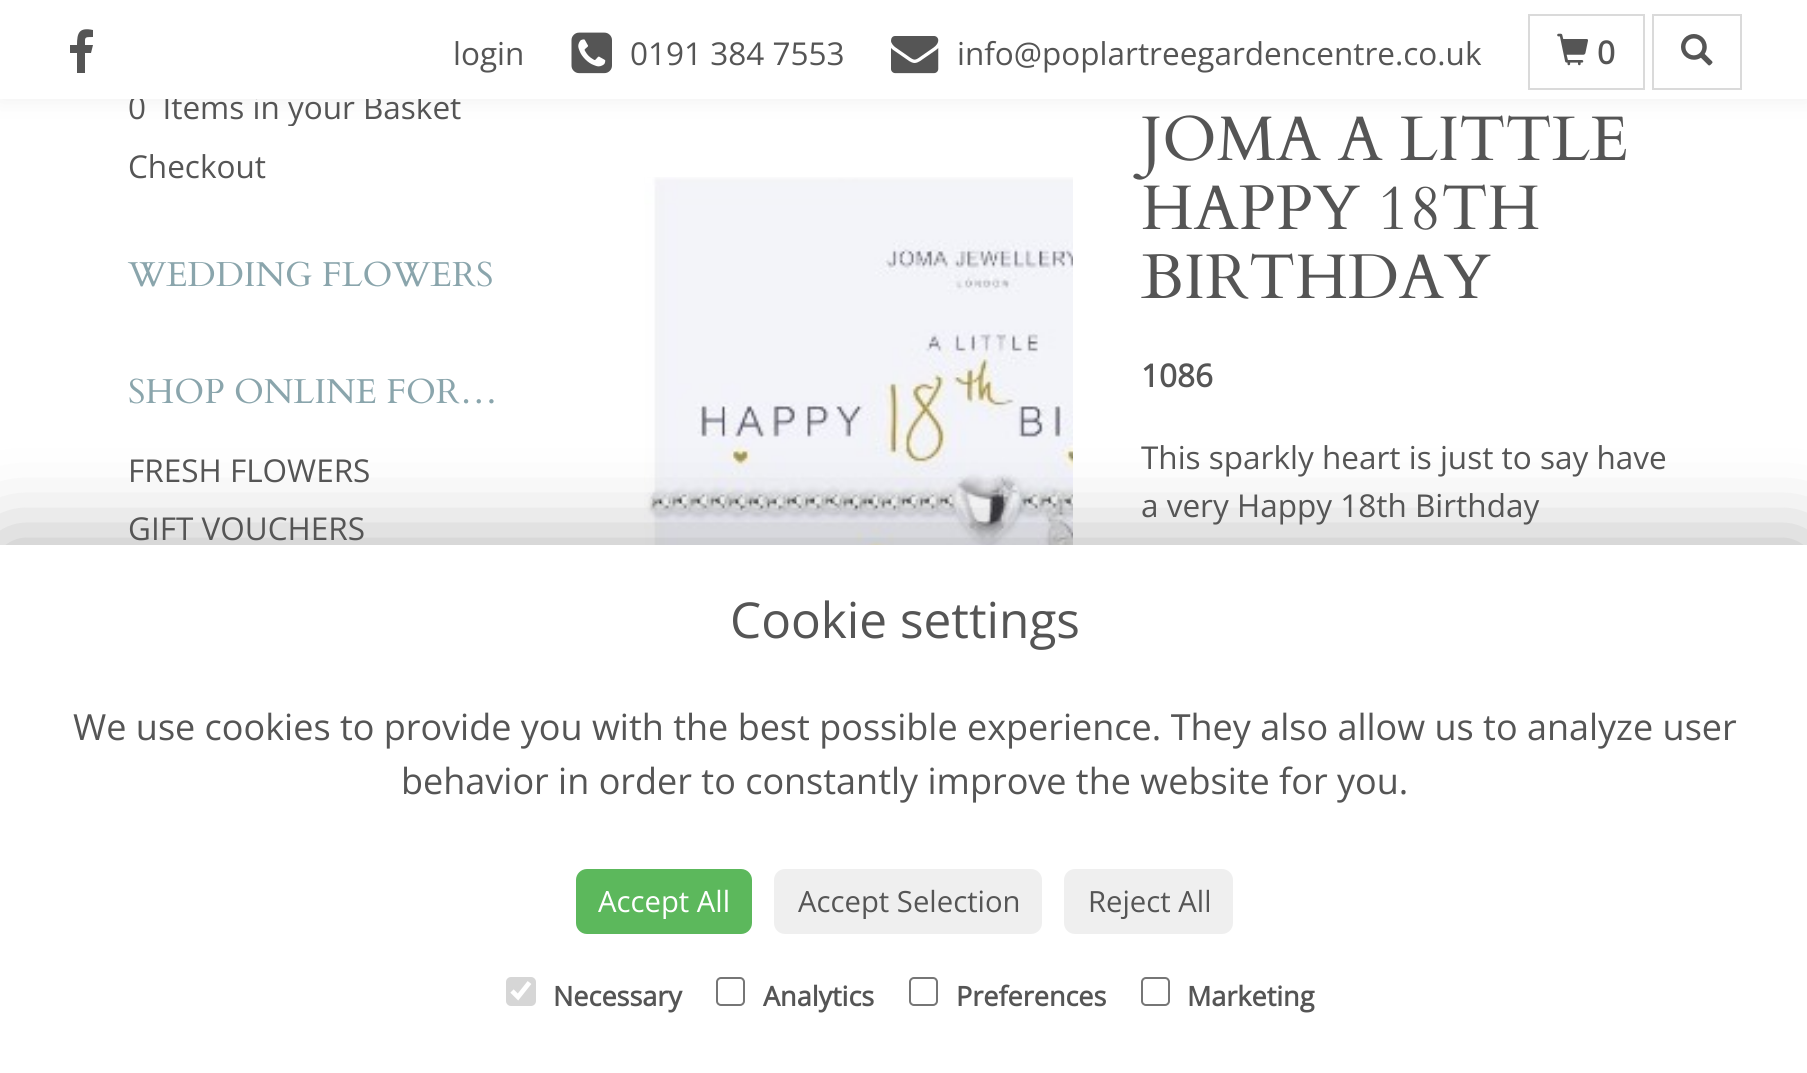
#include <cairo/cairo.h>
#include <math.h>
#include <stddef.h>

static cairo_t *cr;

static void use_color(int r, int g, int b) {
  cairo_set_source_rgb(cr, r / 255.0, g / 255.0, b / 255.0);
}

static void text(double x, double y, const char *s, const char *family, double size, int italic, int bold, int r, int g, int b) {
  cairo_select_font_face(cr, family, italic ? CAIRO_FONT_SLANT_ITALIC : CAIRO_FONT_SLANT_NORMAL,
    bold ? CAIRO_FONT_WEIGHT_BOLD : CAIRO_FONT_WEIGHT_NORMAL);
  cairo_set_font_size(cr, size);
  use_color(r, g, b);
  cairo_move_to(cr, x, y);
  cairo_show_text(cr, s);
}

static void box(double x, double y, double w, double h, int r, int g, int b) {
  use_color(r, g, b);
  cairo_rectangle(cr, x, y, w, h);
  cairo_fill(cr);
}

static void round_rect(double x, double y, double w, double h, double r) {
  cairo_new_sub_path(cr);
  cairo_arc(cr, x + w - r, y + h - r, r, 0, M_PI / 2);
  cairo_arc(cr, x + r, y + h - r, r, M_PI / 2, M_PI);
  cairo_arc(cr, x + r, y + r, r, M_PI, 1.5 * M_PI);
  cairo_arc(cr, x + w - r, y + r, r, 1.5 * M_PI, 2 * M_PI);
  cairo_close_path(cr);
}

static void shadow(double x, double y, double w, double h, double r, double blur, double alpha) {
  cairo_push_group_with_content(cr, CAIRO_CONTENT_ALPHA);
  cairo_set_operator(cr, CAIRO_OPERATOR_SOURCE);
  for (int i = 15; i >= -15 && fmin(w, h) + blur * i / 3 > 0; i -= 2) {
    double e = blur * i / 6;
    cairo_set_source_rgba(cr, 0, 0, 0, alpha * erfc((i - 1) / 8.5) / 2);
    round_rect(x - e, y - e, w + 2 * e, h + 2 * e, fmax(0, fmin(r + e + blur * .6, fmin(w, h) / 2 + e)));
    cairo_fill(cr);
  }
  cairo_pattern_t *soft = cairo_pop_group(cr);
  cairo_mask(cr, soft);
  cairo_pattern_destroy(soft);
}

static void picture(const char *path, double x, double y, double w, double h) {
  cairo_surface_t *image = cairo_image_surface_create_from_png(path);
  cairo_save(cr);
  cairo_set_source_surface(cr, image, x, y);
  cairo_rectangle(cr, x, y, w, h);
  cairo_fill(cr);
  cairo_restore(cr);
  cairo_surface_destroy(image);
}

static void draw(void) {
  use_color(255, 255, 255);
  cairo_paint(cr);
  use_color(239, 239, 239);
  shadow(0, 0, 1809, 99, 0, 11, 1);
  picture("img_05.png", 644, 177, 429, 368);
  use_color(0, 0, 0);
  shadow(0, 545, 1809, 528, 0, 45, 0.31);
  box(0, 545, 1807, 528, 255, 255, 255);
  use_color(92, 184, 92);
  round_rect(576, 869, 176, 65, 11);
  cairo_fill(cr);
  use_color(239, 239, 239);
  round_rect(774, 869, 268, 65, 11);
  cairo_fill(cr);
  round_rect(1064, 869, 169, 65, 11);
  cairo_fill(cr);
  use_color(214, 214, 214);
  round_rect(506, 977, 30, 29, 5);
  cairo_fill(cr);
  cairo_new_path(cr);
  cairo_move_to(cr, 512, 991);
  cairo_line_to(cr, 518, 997);
  cairo_line_to(cr, 529.5, 982.5);
  use_color(255, 255, 255);
  cairo_set_line_width(cr, 4.7);
  cairo_stroke(cr);
  round_rect(717, 978, 27, 27, 4);
  use_color(118, 118, 118);
  cairo_set_line_width(cr, 2);
  cairo_stroke(cr);
  round_rect(910, 978, 27, 27, 4);
  cairo_stroke(cr);
  round_rect(1142, 978, 27, 27, 4);
  cairo_stroke(cr);
  cairo_save(cr);
  cairo_rectangle(cr, 128, 90, 372, 36);
  cairo_clip(cr);
  text(128, 119, "0  Items in your Basket", "Open Sans", 31.5, 0, 0, 85, 85, 85);
  cairo_restore(cr);
  box(0, 0, 1807, 99, 255, 255, 255);
  cairo_rectangle(cr, 1653, 15, 88, 74);
  use_color(218, 218, 218);
  cairo_stroke(cr);
  picture("img_04.png", 1681, 34, 32, 32);
  cairo_rectangle(cr, 1529, 15, 115, 74);
  cairo_stroke(cr);
  picture("img_03.png", 1557, 33, 31, 33);
  picture("img_02.png", 891, 36, 48, 38);
  text(957, 65, "info@poplartreegardencentre.co.uk", "Open Sans", 31.5, 0, 0, 85, 85, 85);
  picture("img_01.png", 571, 32, 41, 42);
  text(630, 65, "0191 384 7553", "Open Sans", 31.5, 0, 0, 85, 85, 85);
  text(453, 65, "login", "Open Sans", 31.5, 0, 0, 85, 85, 85);
  text(1597, 64, "0", "Open Sans", 31.5, 0, 1, 85, 85, 85);
  cairo_new_path(cr);
  cairo_move_to(cr, 93, 30);
  cairo_line_to(cr, 93, 37);
  cairo_curve_to(cr, 84, 37, 85, 37, 85, 45);
  cairo_line_to(cr, 93, 45);
  cairo_line_to(cr, 91, 53);
  cairo_line_to(cr, 85, 53);
  cairo_line_to(cr, 85, 73);
  cairo_line_to(cr, 77, 73);
  cairo_line_to(cr, 77, 53);
  cairo_line_to(cr, 70, 53);
  cairo_line_to(cr, 70, 45);
  cairo_line_to(cr, 77, 45);
  cairo_curve_to(cr, 77, 33, 79, 27, 93, 30);
  cairo_close_path(cr);
  cairo_fill(cr);
  text(128, 178, "Checkout", "Open Sans", 31.5, 0, 0, 85, 85, 85);
  text(128, 286, "WEDDING FLOWERS", "Cardo", 34.6, 0, 0, 138, 165, 172);
  text(128, 403, "SHOP ONLINE FOR…", "Cardo", 34.6, 0, 0, 138, 165, 172);
  text(128, 482, "FRESH FLOWERS", "Open Sans", 31.5, 0, 0, 85, 85, 85);
  text(128, 540, "GIFT VOUCHERS", "Open Sans", 31.5, 0, 0, 85, 85, 85);
  text(1141, 160, "JOMA A LITTLE", "Cardo", 63, 0, 0, 85, 85, 85);
  text(1141, 229, "HAPPY 18TH", "Cardo", 63, 0, 0, 85, 85, 85);
  text(1141, 298, "BIRTHDAY", "Cardo", 63, 0, 0, 85, 85, 85);
  text(1141, 387, "1086", "Open Sans", 31.5, 0, 1, 85, 85, 85);
  text(1141, 469, "This sparkly heart is just to say have", "Open Sans", 31.5, 0, 0, 85, 85, 85);
  text(1141, 517, "a very Happy 18th Birthday", "Open Sans", 31.5, 0, 0, 85, 85, 85);
  text(730, 638, "Cookie settings", "Open Sans", 49.5, 0, 0, 85, 85, 85);
  text(73, 740, "We use cookies to provide you with the best possible experience. They also allow us to analyze user", "Open Sans", 36, 0, 0, 85, 85, 85);
  text(401, 794, "behavior in order to constantly improve the website for you.", "Open Sans", 36, 0, 0, 85, 85, 85);
  text(598, 912, "Accept All", "Open Sans", 29.25, 0, 0, 255, 255, 255);
  text(798, 912, "Accept Selection", "Open Sans", 29.25, 0, 0, 85, 85, 85);
  text(1088, 912, "Reject All", "Open Sans", 29.25, 0, 0, 85, 85, 85);
  text(553, 1006, "Necessary", "Open Sans", 27, 0, 1, 85, 85, 85);
  text(763, 1006, "Analytics", "Open Sans", 27, 0, 1, 85, 85, 85);
  text(956, 1006, "Preferences", "Open Sans", 27, 0, 1, 85, 85, 85);
  text(1187, 1006, "Marketing", "Open Sans", 27, 0, 1, 85, 85, 85);
}

int main(void) {
  cairo_surface_t *surface = cairo_image_surface_create(CAIRO_FORMAT_RGB24, 1807, 1073);
  cr = cairo_create(surface);
  cairo_font_options_t *options = cairo_font_options_create();
  cairo_font_options_set_hint_metrics(options, CAIRO_HINT_METRICS_OFF);
  cairo_font_options_set_hint_style(options, CAIRO_HINT_STYLE_NONE);
  cairo_set_font_options(cr, options);
  cairo_set_miter_limit(cr, 4);
  draw();
  cairo_surface_write_to_png(surface, "out.png");
  cairo_font_options_destroy(options);
  cairo_destroy(cr);
  cairo_surface_destroy(surface);
  return 0;
}
